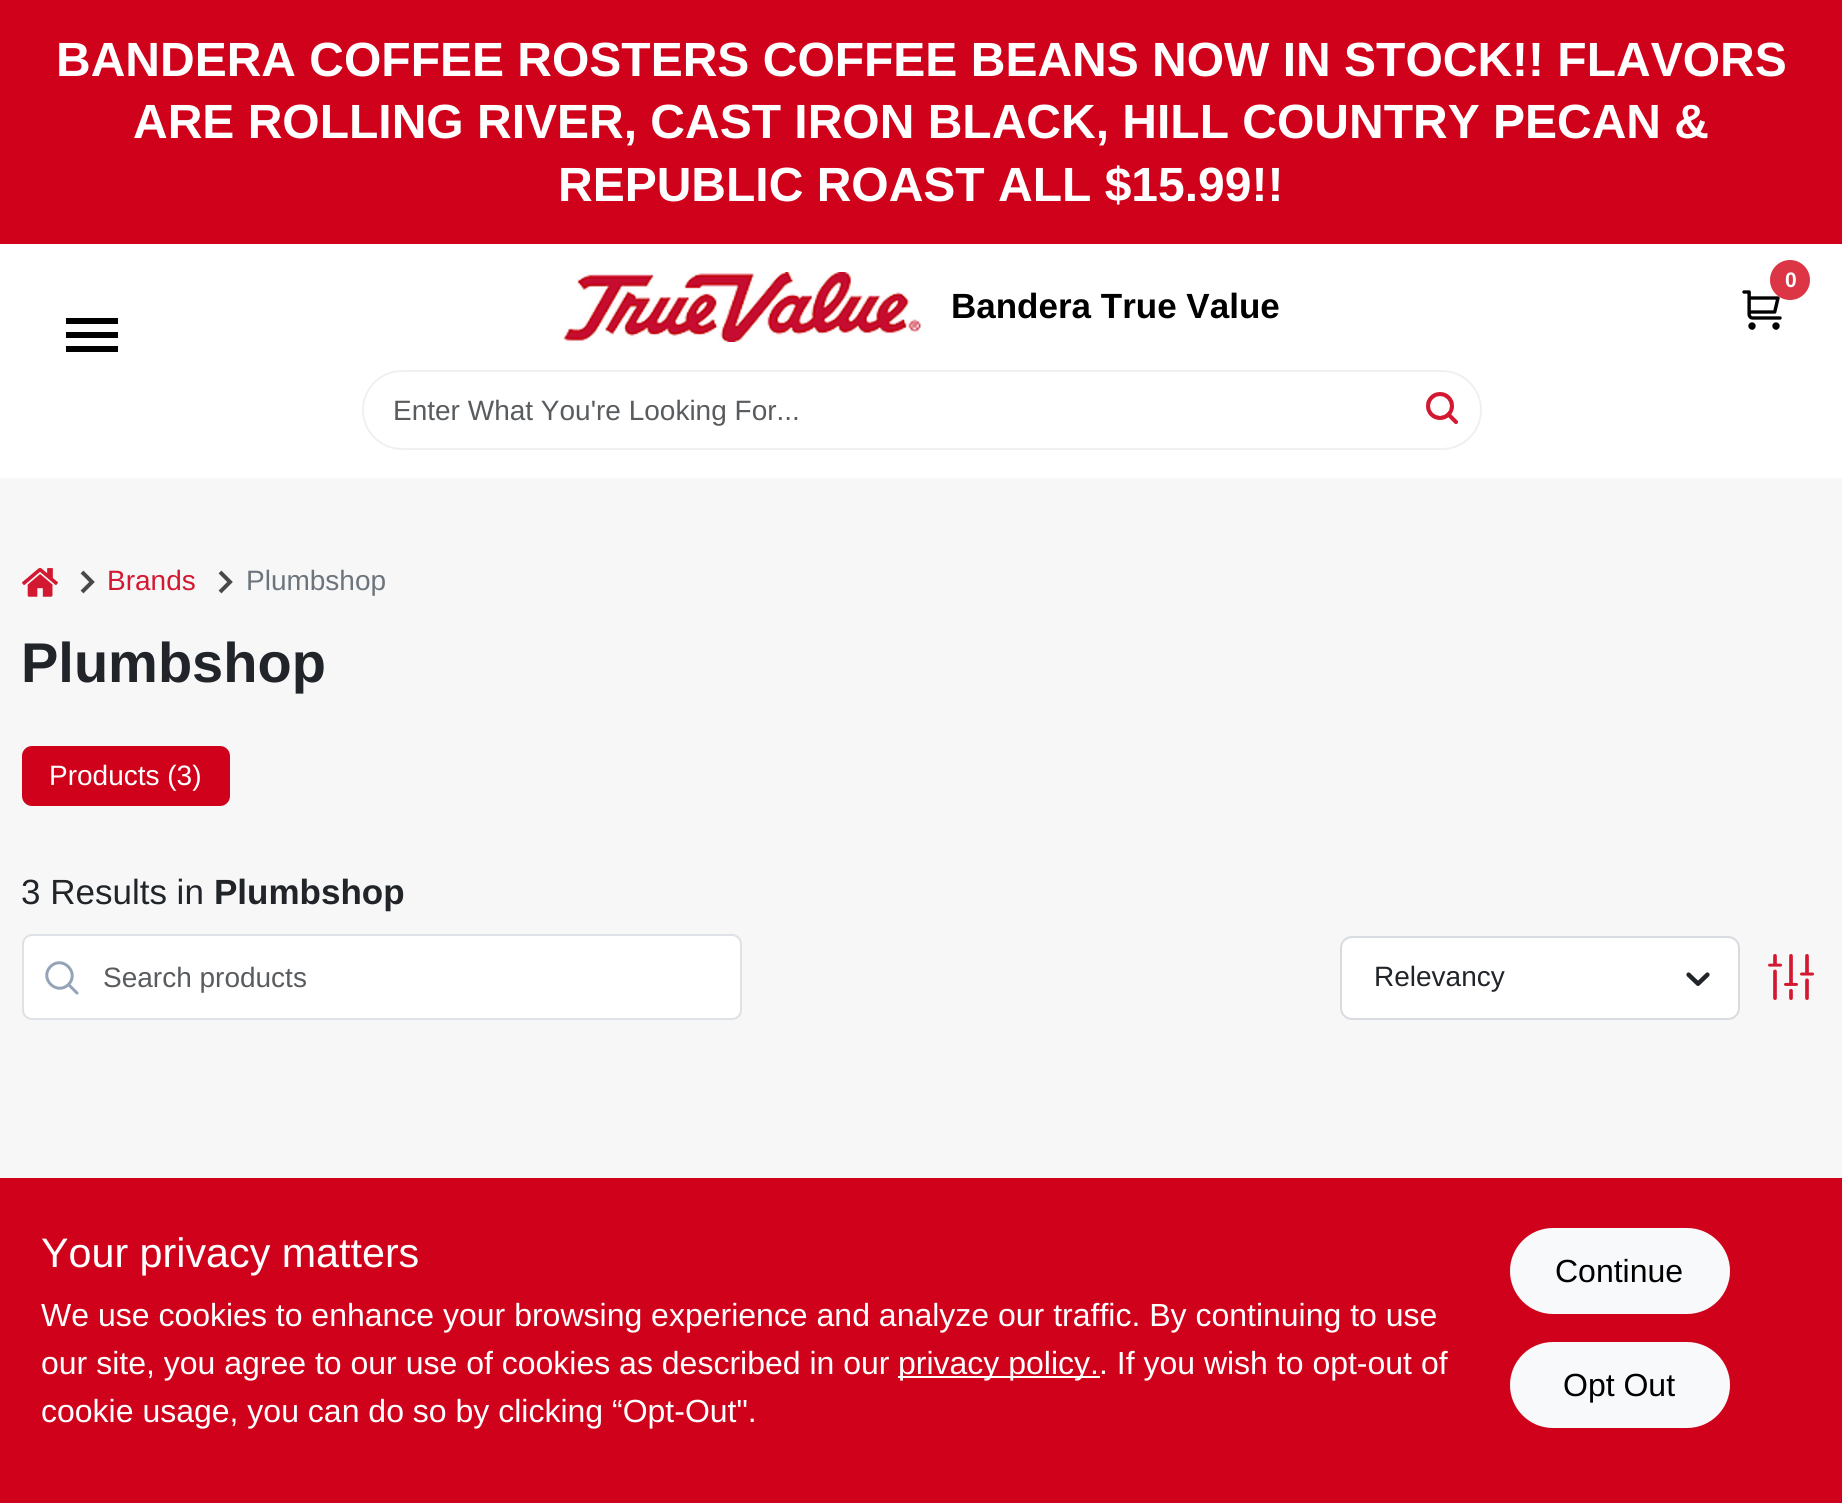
#include <cairo/cairo.h>
#include <math.h>
#include <stddef.h>

static cairo_t *cr;

static void use_color(int r, int g, int b) {
  cairo_set_source_rgb(cr, r / 255.0, g / 255.0, b / 255.0);
}

static void text(double x, double y, const char *s, const char *family, double size, int italic, int bold, int r, int g, int b) {
  cairo_select_font_face(cr, family, italic ? CAIRO_FONT_SLANT_ITALIC : CAIRO_FONT_SLANT_NORMAL,
    bold ? CAIRO_FONT_WEIGHT_BOLD : CAIRO_FONT_WEIGHT_NORMAL);
  cairo_set_font_size(cr, size);
  use_color(r, g, b);
  cairo_move_to(cr, x, y);
  cairo_show_text(cr, s);
}

static void spaced_text(double x, double y, const char *s, double letter, double word) {
  cairo_move_to(cr, x, y);
  while (*s) {
    char ch[5] = {0};
    int n = 0;
    do ch[n++] = *s++; while ((*s & 0xC0) == 0x80);
    cairo_show_text(cr, ch);
    cairo_rel_move_to(cr, letter + word * (*ch == ' '), 0);
  }
}

static void box(double x, double y, double w, double h, int r, int g, int b) {
  use_color(r, g, b);
  cairo_rectangle(cr, x, y, w, h);
  cairo_fill(cr);
}

static void round_rect(double x, double y, double w, double h, double r) {
  cairo_new_sub_path(cr);
  cairo_arc(cr, x + w - r, y + h - r, r, 0, M_PI / 2);
  cairo_arc(cr, x + r, y + h - r, r, M_PI / 2, M_PI);
  cairo_arc(cr, x + r, y + r, r, M_PI, 1.5 * M_PI);
  cairo_arc(cr, x + w - r, y + r, r, 1.5 * M_PI, 2 * M_PI);
  cairo_close_path(cr);
}

static void picture(const char *path, double x, double y, double w, double h) {
  cairo_surface_t *image = cairo_image_surface_create_from_png(path);
  cairo_save(cr);
  cairo_set_source_surface(cr, image, x, y);
  cairo_rectangle(cr, x, y, w, h);
  cairo_fill(cr);
  cairo_restore(cr);
  cairo_surface_destroy(image);
}

static void draw(void) {
  use_color(247, 247, 247);
  cairo_paint(cr);
  box(0, 0, 1842, 244, 208, 2, 27);
  box(0, 244, 1842, 234, 255, 255, 255);
  picture("img_01.png", 1742, 290, 40, 40);
  use_color(220, 53, 69);
  cairo_arc(cr, 1790, 280, 20, 0, 2 * M_PI);
  cairo_fill(cr);
  picture("img_02.png", 563, 272, 359, 70);
  box(66, 318, 52, 6, 0, 0, 0);
  box(66, 332, 52, 6, 0, 0, 0);
  box(66, 346, 52, 6, 0, 0, 0);
  round_rect(363, 371, 1118, 78, 39);
  use_color(240, 240, 240);
  cairo_stroke(cr);
  picture("img_03.png", 1426, 392, 32, 32);
  picture("img_04.png", 22, 568, 36, 29);
  cairo_new_path(cr);
  cairo_move_to(cr, 82, 572);
  cairo_line_to(cr, 92, 582);
  cairo_line_to(cr, 82, 592);
  use_color(73, 73, 73);
  cairo_set_line_width(cr, 4);
  cairo_stroke(cr);
  cairo_new_path(cr);
  cairo_move_to(cr, 220, 572);
  cairo_line_to(cr, 230, 582);
  cairo_line_to(cr, 220, 592);
  cairo_stroke(cr);
  use_color(208, 2, 27);
  round_rect(22, 746, 208, 60, 10);
  cairo_fill(cr);
  use_color(255, 255, 255);
  round_rect(24, 936, 716, 82, 8);
  cairo_fill(cr);
  cairo_new_path(cr);
  cairo_move_to(cr, 77, 993);
  cairo_line_to(cr, 68.5, 984.5);
  cairo_move_to(cr, 68.5, 984.5);
  cairo_curve_to(cr, 80, 972.5, 62.5, 955, 50.5, 966.5);
  cairo_curve_to(cr, 39, 978.5, 56.5, 996, 68.5, 984.5);
  cairo_close_path(cr);
  use_color(148, 163, 184);
  cairo_set_line_width(cr, 3);
  cairo_set_line_cap(cr, CAIRO_LINE_CAP_ROUND);
  cairo_set_line_join(cr, CAIRO_LINE_JOIN_ROUND);
  cairo_stroke(cr);
  round_rect(23, 935, 718, 84, 9);
  use_color(222, 226, 230);
  cairo_set_line_width(cr, 2);
  cairo_set_line_cap(cr, CAIRO_LINE_CAP_BUTT);
  cairo_set_line_join(cr, CAIRO_LINE_JOIN_MITER);
  cairo_stroke(cr);
  use_color(255, 255, 255);
  round_rect(1341, 937, 398, 82, 11);
  cairo_fill_preserve(cr);
  use_color(216, 219, 223);
  cairo_stroke(cr);
  picture("img_05.png", 1686, 972, 24, 14);
  picture("img_06.png", 1768, 954, 46, 46);
  box(0, 1178, 1842, 325, 208, 2, 27);
  box(898, 1376, 202, 2, 255, 255, 255);
  use_color(248, 249, 250);
  round_rect(1511, 1229, 218, 84, 42);
  cairo_fill_preserve(cr);
  cairo_stroke(cr);
  round_rect(1511, 1343, 218, 84, 42);
  cairo_fill_preserve(cr);
  cairo_stroke(cr);
  text(56, 76, "BANDERA COFFEE ROSTERS COFFEE BEANS NOW IN STOCK!! FLAVORS", "Liberation Sans", 48, 0, 1, 255, 255, 255);
  text(133, 138, "ARE ROLLING RIVER, CAST IRON BLACK, HILL COUNTRY PECAN &", "Liberation Sans", 48, 0, 1, 255, 255, 255);
  text(558, 201, "REPUBLIC ROAST ALL $15.99!!", "Liberation Sans", 48, 0, 1, 255, 255, 255);
  cairo_set_font_size(cr, 21);
  spaced_text(1785, 287, "0", -2, 0);
  text(951, 318, "Bandera True Value", "Liberation Sans", 35, 0, 1, 0, 0, 0);
  text(393, 420, "Enter What You're Looking For...", "Liberation Sans", 28, 0, 0, 89, 92, 95);
  text(107, 590, "Brands", "Liberation Sans", 28, 0, 0, 211, 25, 49);
  text(246, 590, "Plumbshop", "Liberation Sans", 28, 0, 0, 108, 117, 125);
  text(21, 682, "Plumbshop", "Liberation Sans", 56, 0, 1, 33, 37, 41);
  text(49, 785, "Products (3)", "Liberation Sans", 28, 0, 0, 255, 255, 255);
  text(21, 904, "3 Results in", "Liberation Sans", 35, 0, 0, 33, 37, 41);
  text(214, 904, "Plumbshop", "Liberation Sans", 35, 0, 1, 33, 37, 41);
  text(103, 987, "Search products", "Liberation Sans", 28, 0, 0, 89, 92, 95);
  text(1374, 986, "Relevancy", "Liberation Sans", 28, 0, 0, 33, 37, 41);
  text(41, 1267, "Your privacy matters", "Liberation Sans", 41.25, 0, 0, 255, 255, 255);
  text(41, 1326, "We use cookies to enhance your browsing experience and analyze our traffic. By continuing to use", "Liberation Sans", 32, 0, 0, 255, 255, 255);
  text(41, 1374, "our site, you agree to our use of cookies as described in our", "Liberation Sans", 32, 0, 0, 255, 255, 255);
  text(898, 1374, "privacy policy.. If you wish to opt-out of", "Liberation Sans", 32, 0, 0, 255, 255, 255);
  text(41, 1422, "cookie usage, you can do so by clicking “Opt-Out\".", "Liberation Sans", 32, 0, 0, 255, 255, 255);
  text(1555, 1282, "Continue", "Liberation Sans", 32, 0, 0, 0, 0, 0);
  text(1563, 1396, "Opt Out", "Liberation Sans", 32, 0, 0, 0, 0, 0);
}

int main(void) {
  cairo_surface_t *surface = cairo_image_surface_create(CAIRO_FORMAT_RGB24, 1842, 1503);
  cr = cairo_create(surface);
  cairo_font_options_t *options = cairo_font_options_create();
  cairo_font_options_set_hint_metrics(options, CAIRO_HINT_METRICS_OFF);
  cairo_font_options_set_hint_style(options, CAIRO_HINT_STYLE_NONE);
  cairo_set_font_options(cr, options);
  cairo_set_miter_limit(cr, 4);
  draw();
  cairo_surface_write_to_png(surface, "out.png");
  cairo_font_options_destroy(options);
  cairo_destroy(cr);
  cairo_surface_destroy(surface);
  return 0;
}
